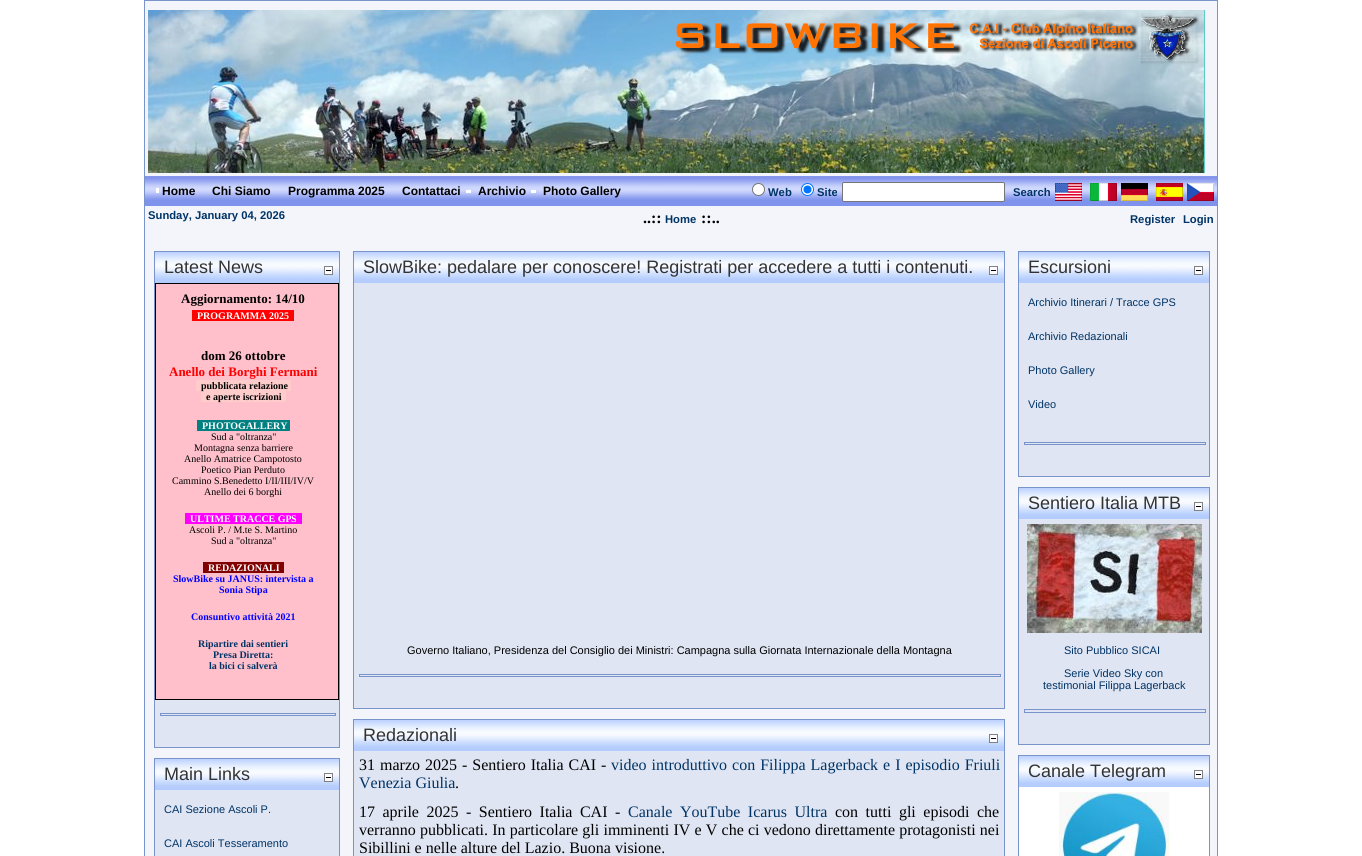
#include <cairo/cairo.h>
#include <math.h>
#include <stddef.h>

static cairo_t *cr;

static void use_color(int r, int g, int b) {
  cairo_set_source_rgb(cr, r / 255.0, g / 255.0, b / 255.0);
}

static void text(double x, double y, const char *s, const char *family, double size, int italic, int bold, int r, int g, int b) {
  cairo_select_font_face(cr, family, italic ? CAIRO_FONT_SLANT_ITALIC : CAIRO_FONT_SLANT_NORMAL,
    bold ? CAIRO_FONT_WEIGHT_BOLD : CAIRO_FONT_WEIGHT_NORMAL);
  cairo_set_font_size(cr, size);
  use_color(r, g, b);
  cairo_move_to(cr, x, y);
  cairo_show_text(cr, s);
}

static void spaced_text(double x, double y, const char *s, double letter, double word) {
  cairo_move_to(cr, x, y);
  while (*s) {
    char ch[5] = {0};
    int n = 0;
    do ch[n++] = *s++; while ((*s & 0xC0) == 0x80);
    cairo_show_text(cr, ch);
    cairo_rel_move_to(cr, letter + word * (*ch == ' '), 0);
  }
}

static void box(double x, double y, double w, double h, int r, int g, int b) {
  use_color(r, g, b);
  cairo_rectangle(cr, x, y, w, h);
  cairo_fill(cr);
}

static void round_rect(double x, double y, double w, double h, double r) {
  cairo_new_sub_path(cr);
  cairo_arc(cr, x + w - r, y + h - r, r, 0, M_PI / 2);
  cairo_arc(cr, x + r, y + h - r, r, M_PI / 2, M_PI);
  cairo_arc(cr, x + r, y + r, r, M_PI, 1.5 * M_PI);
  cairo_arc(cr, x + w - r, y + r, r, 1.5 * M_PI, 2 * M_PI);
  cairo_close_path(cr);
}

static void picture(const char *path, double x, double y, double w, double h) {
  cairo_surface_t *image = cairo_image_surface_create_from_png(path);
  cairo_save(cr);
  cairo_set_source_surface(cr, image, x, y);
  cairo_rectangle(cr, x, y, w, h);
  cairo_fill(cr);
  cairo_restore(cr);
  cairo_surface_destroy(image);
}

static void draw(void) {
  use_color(255, 255, 255);
  cairo_paint(cr);
  use_color(243, 245, 250);
  cairo_rectangle(cr, 144.5, 0.5, 1073, 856);
  cairo_fill_preserve(cr);
  use_color(121, 148, 203);
  cairo_set_line_width(cr, 1);
  cairo_stroke(cr);
  picture("img_01.png", 148, 10, 1057, 163);
  picture("img_02.png", 145, 176, 1072, 30);
  box(156, 188, 3, 5, 255, 255, 255);
  box(466, 190, 5, 3, 255, 255, 255);
  box(531, 190, 5, 3, 255, 255, 255);
  cairo_arc(cr, 758.5, 189.5, 6, 0, 2 * M_PI);
  cairo_fill_preserve(cr);
  use_color(118, 118, 118);
  cairo_stroke(cr);
  use_color(255, 255, 255);
  cairo_arc(cr, 807.5, 189.5, 6, 0, 2 * M_PI);
  cairo_fill_preserve(cr);
  use_color(0, 117, 255);
  cairo_stroke(cr);
  cairo_arc(cr, 807.5, 189.5, 4, 0, 2 * M_PI);
  cairo_fill(cr);
  use_color(255, 255, 255);
  round_rect(842.5, 182.5, 162, 19, 1.5);
  cairo_fill_preserve(cr);
  use_color(118, 118, 118);
  cairo_stroke(cr);
  picture("img_03.png", 1055, 183, 27, 18);
  picture("img_04.png", 1090, 183, 27, 18);
  picture("img_05.png", 1121, 183, 27, 18);
  picture("img_06.png", 1156, 183, 27, 18);
  picture("img_07.png", 1187, 183, 27, 18);
  box(155, 700, 184, 47, 223, 229, 242);
  cairo_rectangle(cr, 154.5, 251.5, 185, 496);
  use_color(121, 148, 203);
  cairo_stroke(cr);
  picture("img_08.png", 155, 252, 184, 31);
  picture("img_09.png", 324, 266, 9, 9);
  use_color(255, 192, 203);
  cairo_rectangle(cr, 155.5, 283.5, 183, 416);
  cairo_fill_preserve(cr);
  use_color(0, 0, 0);
  cairo_stroke(cr);
  box(192, 310, 102, 11, 255, 0, 0);
  box(196, 380, 95, 11, 255, 204, 204);
  box(201, 391, 85, 11, 255, 204, 204);
  box(197, 420, 93, 11, 0, 128, 128);
  box(185, 513, 106, 11, 255, 0, 255);
  box(203, 562, 81, 11, 128, 0, 0);
  cairo_rectangle(cr, 160.5, 713.5, 175, 2);
  use_color(121, 148, 203);
  cairo_stroke(cr);
  box(155, 790, 184, 66, 223, 229, 242);
  cairo_rectangle(cr, 154.5, 758.5, 185, 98);
  use_color(121, 148, 203);
  cairo_stroke(cr);
  picture("img_08.png", 155, 759, 184, 31);
  picture("img_09.png", 324, 773, 9, 9);
  box(354, 283, 650, 425, 223, 229, 242);
  cairo_rectangle(cr, 353.5, 251.5, 651, 457);
  use_color(121, 148, 203);
  cairo_stroke(cr);
  picture("img_10.png", 354, 252, 650, 31);
  picture("img_09.png", 989, 266, 9, 9);
  cairo_rectangle(cr, 359.5, 674.5, 641, 2);
  cairo_stroke(cr);
  box(354, 751, 650, 105, 223, 229, 242);
  cairo_rectangle(cr, 353.5, 719.5, 651, 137);
  use_color(121, 148, 203);
  cairo_stroke(cr);
  picture("img_10.png", 354, 720, 650, 31);
  picture("img_09.png", 989, 734, 9, 9);
  box(1019, 283, 190, 193, 223, 229, 242);
  cairo_rectangle(cr, 1018.5, 251.5, 191, 225);
  use_color(121, 148, 203);
  cairo_stroke(cr);
  picture("img_11.png", 1019, 252, 190, 31);
  picture("img_09.png", 1194, 266, 9, 9);
  cairo_rectangle(cr, 1024.5, 442.5, 181, 2);
  cairo_stroke(cr);
  box(1019, 519, 190, 225, 223, 229, 242);
  cairo_rectangle(cr, 1018.5, 487.5, 191, 257);
  use_color(121, 148, 203);
  cairo_stroke(cr);
  picture("img_11.png", 1019, 488, 190, 31);
  picture("img_09.png", 1194, 502, 9, 9);
  picture("img_12.png", 1027, 524, 175, 109);
  cairo_rectangle(cr, 1024.5, 709.5, 181, 3);
  cairo_stroke(cr);
  cairo_rectangle(cr, 1018.5, 755.5, 191, 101);
  cairo_stroke(cr);
  picture("img_11.png", 1019, 756, 190, 31);
  picture("img_09.png", 1194, 770, 9, 9);
  box(1019, 787, 190, 69, 255, 255, 255);
  picture("img_13.png", 1059, 792, 110, 64);
  text(162, 195, "Home", "Liberation Sans", 12, 0, 1, 0, 0, 0);
  text(212, 195, "Chi Siamo", "Liberation Sans", 12, 0, 1, 0, 0, 0);
  text(288, 195, "Programma 2025", "Liberation Sans", 12, 0, 1, 0, 0, 0);
  text(402, 195, "Contattaci", "Liberation Sans", 12, 0, 1, 0, 0, 0);
  text(478, 195, "Archivio", "Liberation Sans", 12, 0, 1, 0, 0, 0);
  text(543, 195, "Photo Gallery", "Liberation Sans", 12, 0, 1, 0, 0, 0);
  text(768, 196, "Web", "Liberation Sans", 11.25, 0, 1, 0, 51, 102);
  text(817, 196, "Site", "Liberation Sans", 11.25, 0, 1, 0, 51, 102);
  text(1013, 196, "Search", "Liberation Sans", 11.25, 0, 1, 0, 51, 102);
  text(148, 219, "Sunday, January 04, 2026", "Liberation Sans", 11.25, 0, 1, 0, 51, 102);
  text(643, 223, "..::", "Liberation Serif", 16, 0, 1, 0, 0, 0);
  text(665, 223, "Home", "Liberation Sans", 11.25, 0, 1, 0, 51, 102);
  text(701, 223, "::..", "Liberation Serif", 16, 0, 1, 0, 0, 0);
  text(1130, 223, "Register", "Liberation Sans", 11.25, 0, 1, 0, 51, 102);
  text(1183, 223, "Login", "Liberation Sans", 11.25, 0, 1, 0, 51, 102);
  text(164, 273, "Latest News", "Liberation Sans", 18, 0, 0, 51, 51, 51);
  text(181, 303, "Aggiornamento: 14/10", "Liberation Serif", 13, 0, 1, 0, 0, 0);
  text(197, 319, "PROGRAMMA 2025", "Liberation Serif", 10, 0, 1, 255, 255, 255);
  text(201, 360, "dom 26 ottobre", "Liberation Serif", 13, 0, 1, 0, 0, 0);
  text(169, 376, "Anello dei Borghi Fermani", "Liberation Serif", 13, 0, 1, 255, 0, 0);
  text(201, 389, "pubblicata relazione", "Liberation Serif", 10, 0, 1, 0, 0, 0);
  text(206, 400, "e aperte iscrizioni", "Liberation Serif", 10, 0, 1, 0, 0, 0);
  text(202, 429, "PHOTOGALLERY", "Liberation Serif", 10, 0, 1, 255, 255, 255);
  text(211, 440, "Sud a \"oltranza\"", "Liberation Serif", 10, 0, 0, 0, 0, 0);
  text(194, 451, "Montagna senza barriere", "Liberation Serif", 10, 0, 0, 0, 0, 0);
  text(184, 462, "Anello Amatrice Campotosto", "Liberation Serif", 10, 0, 0, 0, 0, 0);
  text(201, 473, "Poetico Pian Perduto", "Liberation Serif", 10, 0, 0, 0, 0, 0);
  text(172, 484, "Cammino S.Benedetto I/II/III/IV/V", "Liberation Serif", 10, 0, 0, 0, 0, 0);
  text(204, 495, "Anello dei 6 borghi", "Liberation Serif", 10, 0, 0, 0, 0, 0);
  text(190, 522, "ULTIME TRACCE GP", "Liberation Serif", 10, 0, 1, 255, 255, 255);
  box(291, 513, 11, 11, 255, 0, 255);
  text(291, 522, "S", "Liberation Serif", 10, 0, 1, 255, 255, 255);
  text(189, 533, "Ascoli P. / M.te S. Martino", "Liberation Serif", 10, 0, 0, 0, 0, 0);
  text(211, 544, "Sud a \"oltranza\"", "Liberation Serif", 10, 0, 0, 0, 0, 0);
  text(208, 571, "REDAZIONALI", "Liberation Serif", 10, 0, 1, 255, 255, 255);
  text(173, 582, "SlowBike su JANUS: intervista a", "Liberation Serif", 10, 0, 1, 0, 0, 255);
  text(219, 593, "Sonia Stipa", "Liberation Serif", 10, 0, 1, 0, 0, 255);
  text(191, 620, "Consuntivo attività 2021", "Liberation Serif", 10, 0, 1, 0, 0, 255);
  text(198, 647, "Ripartire dai sentieri", "Liberation Serif", 10, 0, 1, 0, 51, 102);
  text(213, 658, "Presa Diretta:", "Liberation Serif", 10, 0, 1, 0, 51, 102);
  text(209, 669, "la bici ci salverà", "Liberation Serif", 10, 0, 1, 0, 51, 102);
  text(164, 780, "Main Links", "Liberation Sans", 18, 0, 0, 51, 51, 51);
  text(164, 813, "CAI Sezione Ascoli P.", "Liberation Sans", 11, 0, 0, 0, 51, 102);
  text(164, 847, "CAI Ascoli Tesseramento", "Liberation Sans", 11, 0, 0, 0, 51, 102);
  text(363, 273, "SlowBike: pedalare per conoscere! Registrati per accedere a tutti i contenuti.", "Liberation Sans", 18, 0, 0, 51, 51, 51);
  text(407, 654, "Governo Italiano, Presidenza del Consiglio dei Ministri: Campagna sulla Giornata Internazionale della Montagna", "Liberation Sans", 11, 0, 0, 0, 0, 0);
  text(363, 741, "Redazionali", "Liberation Sans", 18, 0, 0, 51, 51, 51);
  cairo_select_font_face(cr, "Liberation Serif", CAIRO_FONT_SLANT_NORMAL, CAIRO_FONT_WEIGHT_NORMAL);
  cairo_set_font_size(cr, 16);
  use_color(0, 0, 0);
  spaced_text(359, 770, "31 marzo 2025 - Sentiero Italia CAI -", 0, 1);
  use_color(0, 51, 102);
  spaced_text(611, 770, "video introduttivo con Filippa Lagerback e I episodio Friuli", 0, 1);
  text(359, 788, "Venezia Giulia", "Liberation Serif", 16, 0, 0, 0, 51, 102);
  text(455, 788, ".", "Liberation Serif", 16, 0, 0, 0, 0, 0);
  spaced_text(359, 817, "17 aprile 2025 - Sentiero Italia CAI -", 0, 3.5);
  use_color(0, 51, 102);
  spaced_text(628, 817, "Canale YouTube Icarus Ultra", 0, 3.5);
  use_color(0, 0, 0);
  spaced_text(835, 817, "con tutti gli episodi che", 0, 3.5);
  spaced_text(359, 835, "verranno pubblicati. In particolare gli imminenti IV e V che ci vedono direttamente protagonisti nei", 0, 0.2);
  text(359, 853, "Sibillini e nelle alture del Lazio. Buona visione.", "Liberation Serif", 16, 0, 0, 0, 0, 0);
  text(1028, 273, "Escursioni", "Liberation Sans", 18, 0, 0, 51, 51, 51);
  text(1028, 306, "Archivio Itinerari / Tracce GPS", "Liberation Sans", 11, 0, 0, 0, 51, 102);
  text(1028, 340, "Archivio Redazionali", "Liberation Sans", 11, 0, 0, 0, 51, 102);
  text(1028, 374, "Photo Gallery", "Liberation Sans", 11, 0, 0, 0, 51, 102);
  text(1028, 408, "Video", "Liberation Sans", 11, 0, 0, 0, 51, 102);
  text(1028, 509, "Sentiero Italia MTB", "Liberation Sans", 18, 0, 0, 51, 51, 51);
  text(1064, 654, "Sito Pubblico SICAI", "Liberation Sans", 11, 0, 0, 0, 51, 102);
  text(1064, 677, "Serie Video Sky con", "Liberation Sans", 11, 0, 0, 0, 51, 102);
  text(1043, 689, "testimonial Filippa Lagerback", "Liberation Sans", 11, 0, 0, 0, 51, 102);
  text(1028, 777, "Canale Telegram", "Liberation Sans", 18, 0, 0, 51, 51, 51);
}

int main(void) {
  cairo_surface_t *surface = cairo_image_surface_create(CAIRO_FORMAT_RGB24, 1362, 856);
  cr = cairo_create(surface);
  cairo_font_options_t *options = cairo_font_options_create();
  cairo_font_options_set_hint_metrics(options, CAIRO_HINT_METRICS_OFF);
  cairo_font_options_set_hint_style(options, CAIRO_HINT_STYLE_NONE);
  cairo_set_font_options(cr, options);
  cairo_set_miter_limit(cr, 4);
  draw();
  cairo_surface_write_to_png(surface, "out.png");
  cairo_font_options_destroy(options);
  cairo_destroy(cr);
  cairo_surface_destroy(surface);
  return 0;
}
